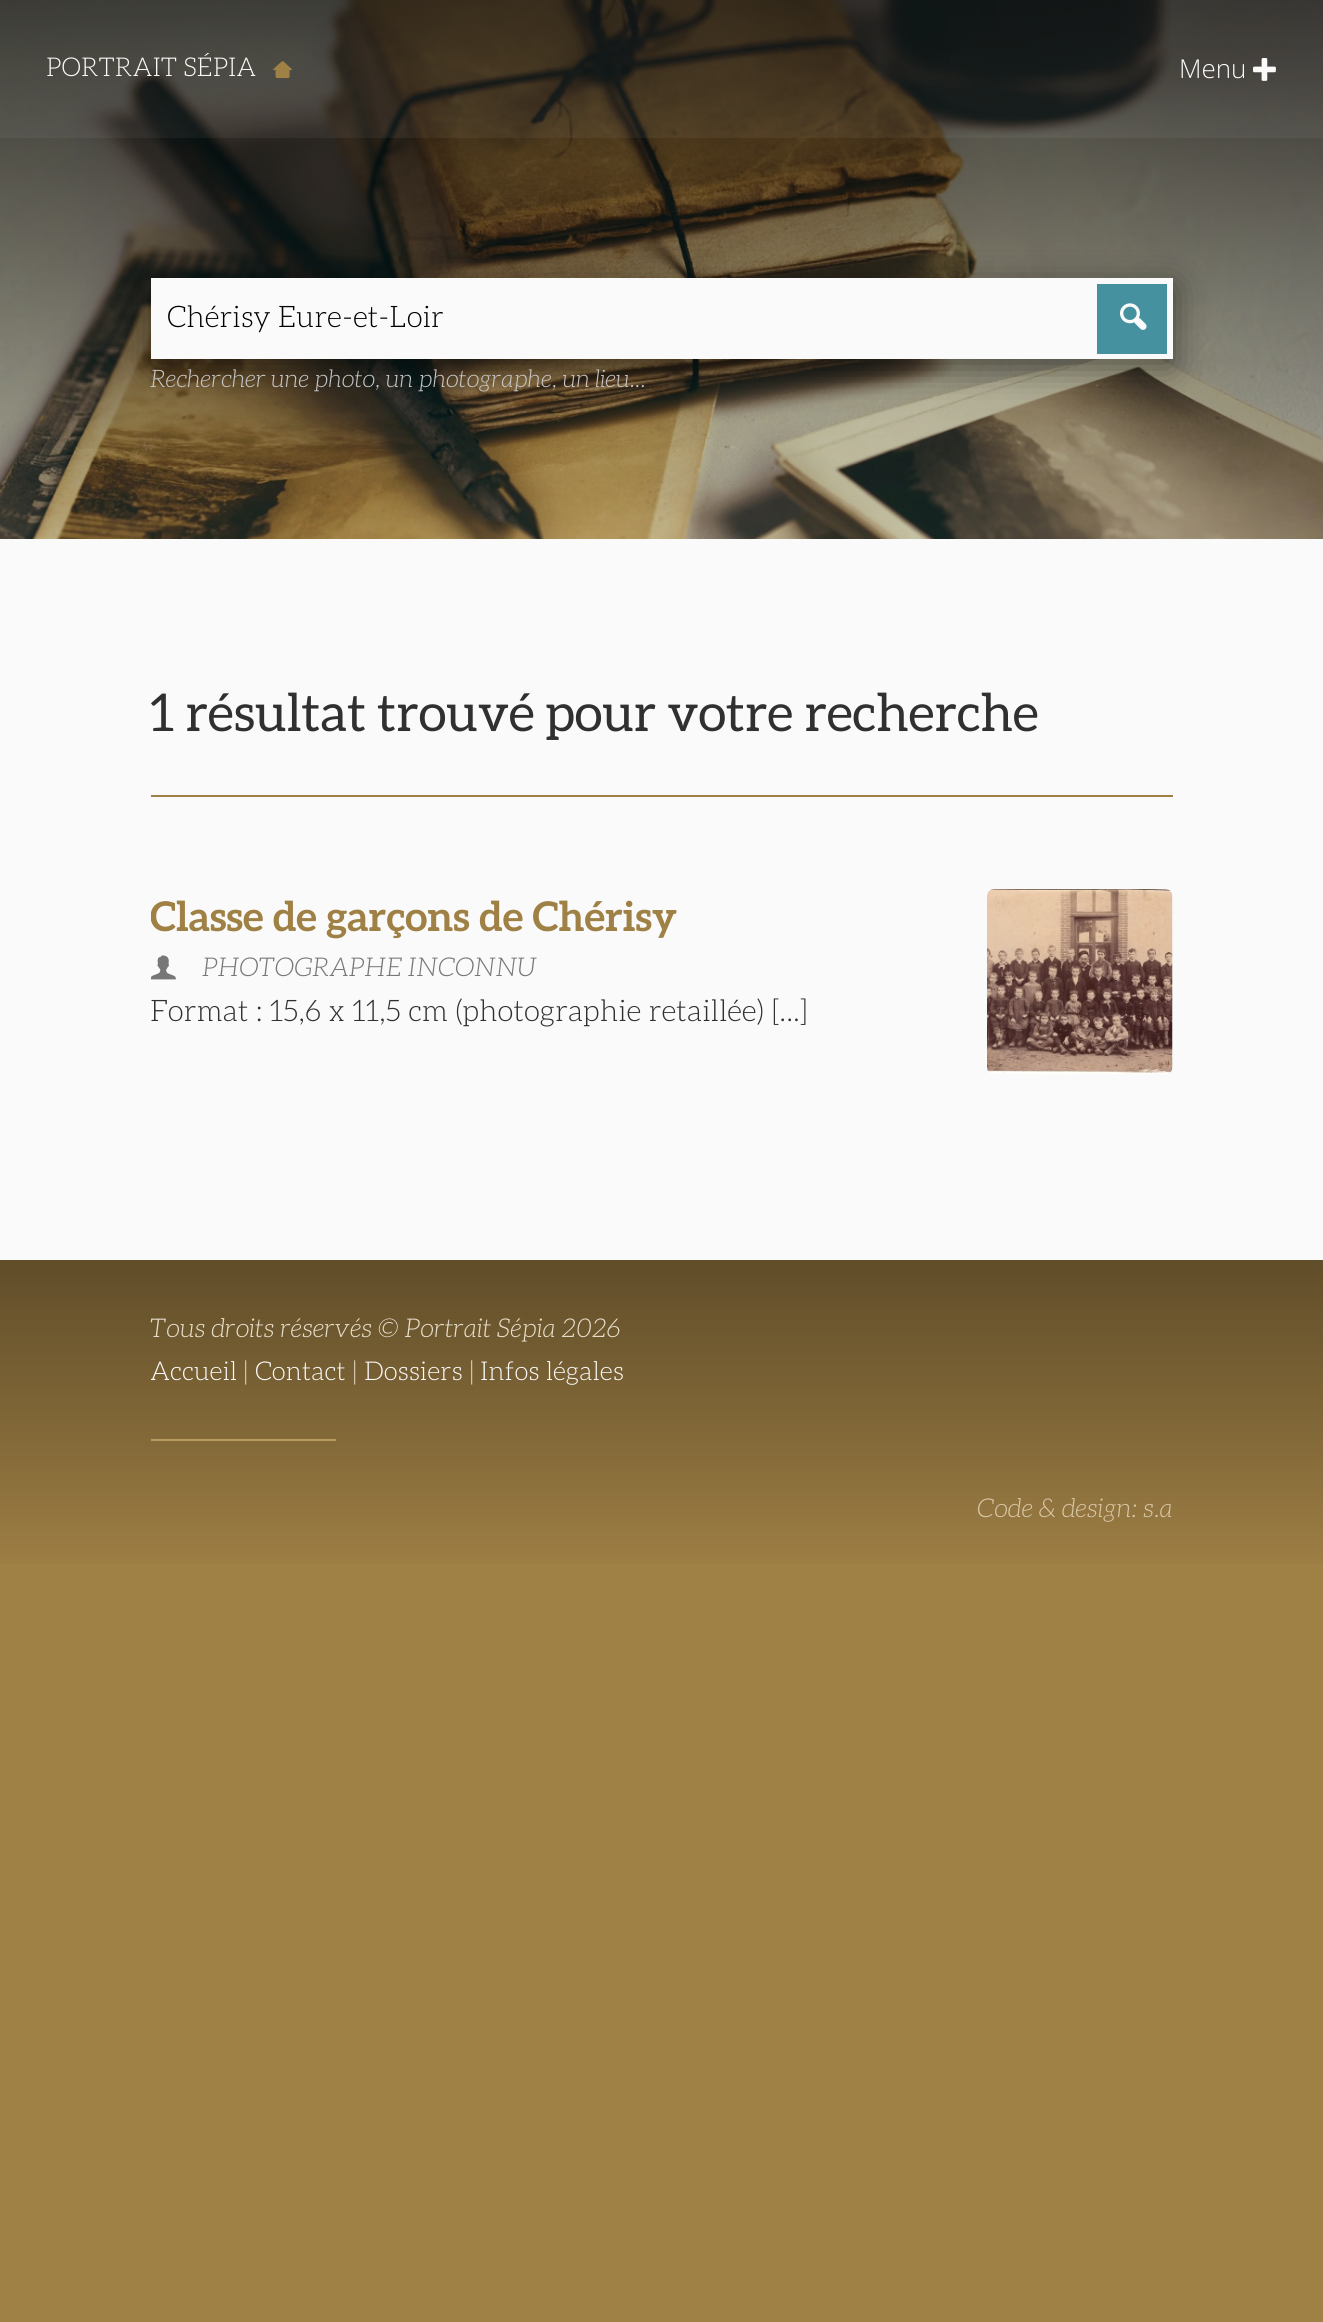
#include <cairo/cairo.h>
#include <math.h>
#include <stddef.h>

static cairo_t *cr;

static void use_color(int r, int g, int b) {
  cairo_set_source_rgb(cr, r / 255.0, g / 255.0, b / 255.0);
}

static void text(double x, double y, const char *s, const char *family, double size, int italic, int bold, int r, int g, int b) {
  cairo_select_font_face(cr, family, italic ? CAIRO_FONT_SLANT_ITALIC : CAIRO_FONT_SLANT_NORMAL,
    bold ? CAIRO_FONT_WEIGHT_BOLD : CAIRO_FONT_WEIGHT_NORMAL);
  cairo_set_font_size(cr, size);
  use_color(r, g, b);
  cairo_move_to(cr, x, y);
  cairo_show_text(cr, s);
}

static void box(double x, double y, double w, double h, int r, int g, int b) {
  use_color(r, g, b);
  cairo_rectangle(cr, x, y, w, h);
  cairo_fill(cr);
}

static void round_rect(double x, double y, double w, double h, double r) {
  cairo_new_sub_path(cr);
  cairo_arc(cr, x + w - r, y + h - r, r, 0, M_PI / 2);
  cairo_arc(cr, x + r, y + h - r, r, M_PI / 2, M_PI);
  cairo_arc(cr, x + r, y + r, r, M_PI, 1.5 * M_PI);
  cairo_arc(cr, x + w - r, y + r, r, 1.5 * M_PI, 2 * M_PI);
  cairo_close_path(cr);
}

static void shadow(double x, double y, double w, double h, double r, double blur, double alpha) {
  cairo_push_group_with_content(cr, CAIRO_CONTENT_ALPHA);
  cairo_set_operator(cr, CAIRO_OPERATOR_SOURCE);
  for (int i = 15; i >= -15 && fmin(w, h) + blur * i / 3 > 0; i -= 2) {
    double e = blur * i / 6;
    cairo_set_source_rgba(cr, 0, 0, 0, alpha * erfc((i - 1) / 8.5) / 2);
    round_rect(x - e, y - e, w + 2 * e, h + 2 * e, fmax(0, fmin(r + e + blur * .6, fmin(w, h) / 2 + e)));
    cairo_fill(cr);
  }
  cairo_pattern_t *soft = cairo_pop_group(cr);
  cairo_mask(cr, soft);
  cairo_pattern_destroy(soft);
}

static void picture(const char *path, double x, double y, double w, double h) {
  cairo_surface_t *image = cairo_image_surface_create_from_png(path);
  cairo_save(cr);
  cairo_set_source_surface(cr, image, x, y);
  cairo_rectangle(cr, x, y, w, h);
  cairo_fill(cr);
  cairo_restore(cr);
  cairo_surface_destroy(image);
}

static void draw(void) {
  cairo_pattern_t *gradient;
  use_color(159, 128, 69);
  cairo_paint(cr);
  picture("img_03.png", 0, 0, 1323, 539);
  cairo_set_source_rgba(cr, 0.98, 0.98, 0.98, 0.05);
  cairo_rectangle(cr, 0, 0, 1323, 138);
  cairo_fill(cr);
  picture("img_01.png", 273, 61, 19, 18);
  picture("img_02.png", 1253, 58, 23, 23);
  box(0, 539, 1323, 721, 250, 250, 250);
  use_color(0, 0, 0);
  shadow(151, 287, 1022, 81, 0, 17.5, 0.5);
  box(151, 278, 1022, 81, 250, 250, 250);
  box(1097, 284, 70, 70, 69, 145, 159);
  picture("img_04.png", 1120, 303, 27, 27);
  box(151, 795, 1022, 2, 159, 128, 69);
  picture("img_05.png", 151, 955, 25, 25);
  picture("img_06.png", 987, 889, 186, 185);
  gradient = cairo_pattern_create_linear(662, 1260, 662, 1580);
  cairo_pattern_add_color_stop_rgba(gradient, 0, 0.376, 0.302, 0.161, 1);
  cairo_pattern_add_color_stop_rgba(gradient, 1, 0.627, 0.502, 0.271, 1);
  cairo_set_source(cr, gradient);
  cairo_pattern_destroy(gradient);
  cairo_rectangle(cr, 0, 1260, 1323, 304);
  cairo_fill(cr);
  box(151, 1439, 185, 2, 185, 154, 94);
  text(46, 76, "PORTRAIT SÉPIA", "Aleo Light", 26, 0, 0, 250, 250, 250);
  text(1179, 78, "Menu", "Open Sans Light", 26, 0, 0, 250, 250, 250);
  text(167, 327, "Chérisy Eure-et-Loir", "Aleo Light", 29.75, 0, 0, 0, 0, 0);
  text(150, 387, "Rechercher une photo, un photographe, un lieu...", "Aleo Light", 24.2, 1, 0, 199, 199, 199);
  text(150, 731, "1 résultat trouvé pour votre recherche", "Aleo", 52.1, 0, 0, 48, 48, 48);
  cairo_save(cr);
  cairo_rectangle(cr, 151, 889, 789, 147);
  cairo_clip(cr);
  text(150, 931, "Classe de garçons de Chérisy", "Aleo", 40.9, 0, 1, 159, 128, 69);
  cairo_restore(cr);
  text(202, 976, "PHOTOGRAPHE INCONNU", "Aleo Light", 26, 1, 0, 119, 119, 119);
  text(150, 1021, "Format : 15,6 x 11,5 cm (photographie retaillée) [...]", "Aleo Light", 29.75, 0, 0, 48, 48, 48);
  text(150, 1337, "Tous droits réservés © Portrait Sépia 2026", "Aleo Light", 26, 1, 0, 231, 221, 201);
  text(150, 1380, "Accueil", "Aleo Light", 26, 0, 0, 250, 250, 250);
  text(243, 1380, "|", "Aleo Light", 26, 0, 0, 231, 221, 201);
  text(255, 1380, "Contact", "Aleo Light", 26, 0, 0, 250, 250, 250);
  text(352, 1380, "|", "Aleo Light", 26, 0, 0, 231, 221, 201);
  text(364, 1380, "Dossiers", "Aleo Light", 26, 0, 0, 250, 250, 250);
  text(469, 1380, "|", "Aleo Light", 26, 0, 0, 231, 221, 201);
  text(480, 1380, "Infos légales", "Aleo Light", 26, 0, 0, 250, 250, 250);
  text(977, 1517, "Code & design: s.a", "Aleo Light", 26, 1, 0, 216, 198, 165);
}

int main(void) {
  cairo_surface_t *surface = cairo_image_surface_create(CAIRO_FORMAT_RGB24, 1323, 2322);
  cr = cairo_create(surface);
  cairo_font_options_t *options = cairo_font_options_create();
  cairo_font_options_set_hint_metrics(options, CAIRO_HINT_METRICS_OFF);
  cairo_font_options_set_hint_style(options, CAIRO_HINT_STYLE_NONE);
  cairo_set_font_options(cr, options);
  cairo_set_miter_limit(cr, 4);
  draw();
  cairo_surface_write_to_png(surface, "out.png");
  cairo_font_options_destroy(options);
  cairo_destroy(cr);
  cairo_surface_destroy(surface);
  return 0;
}
